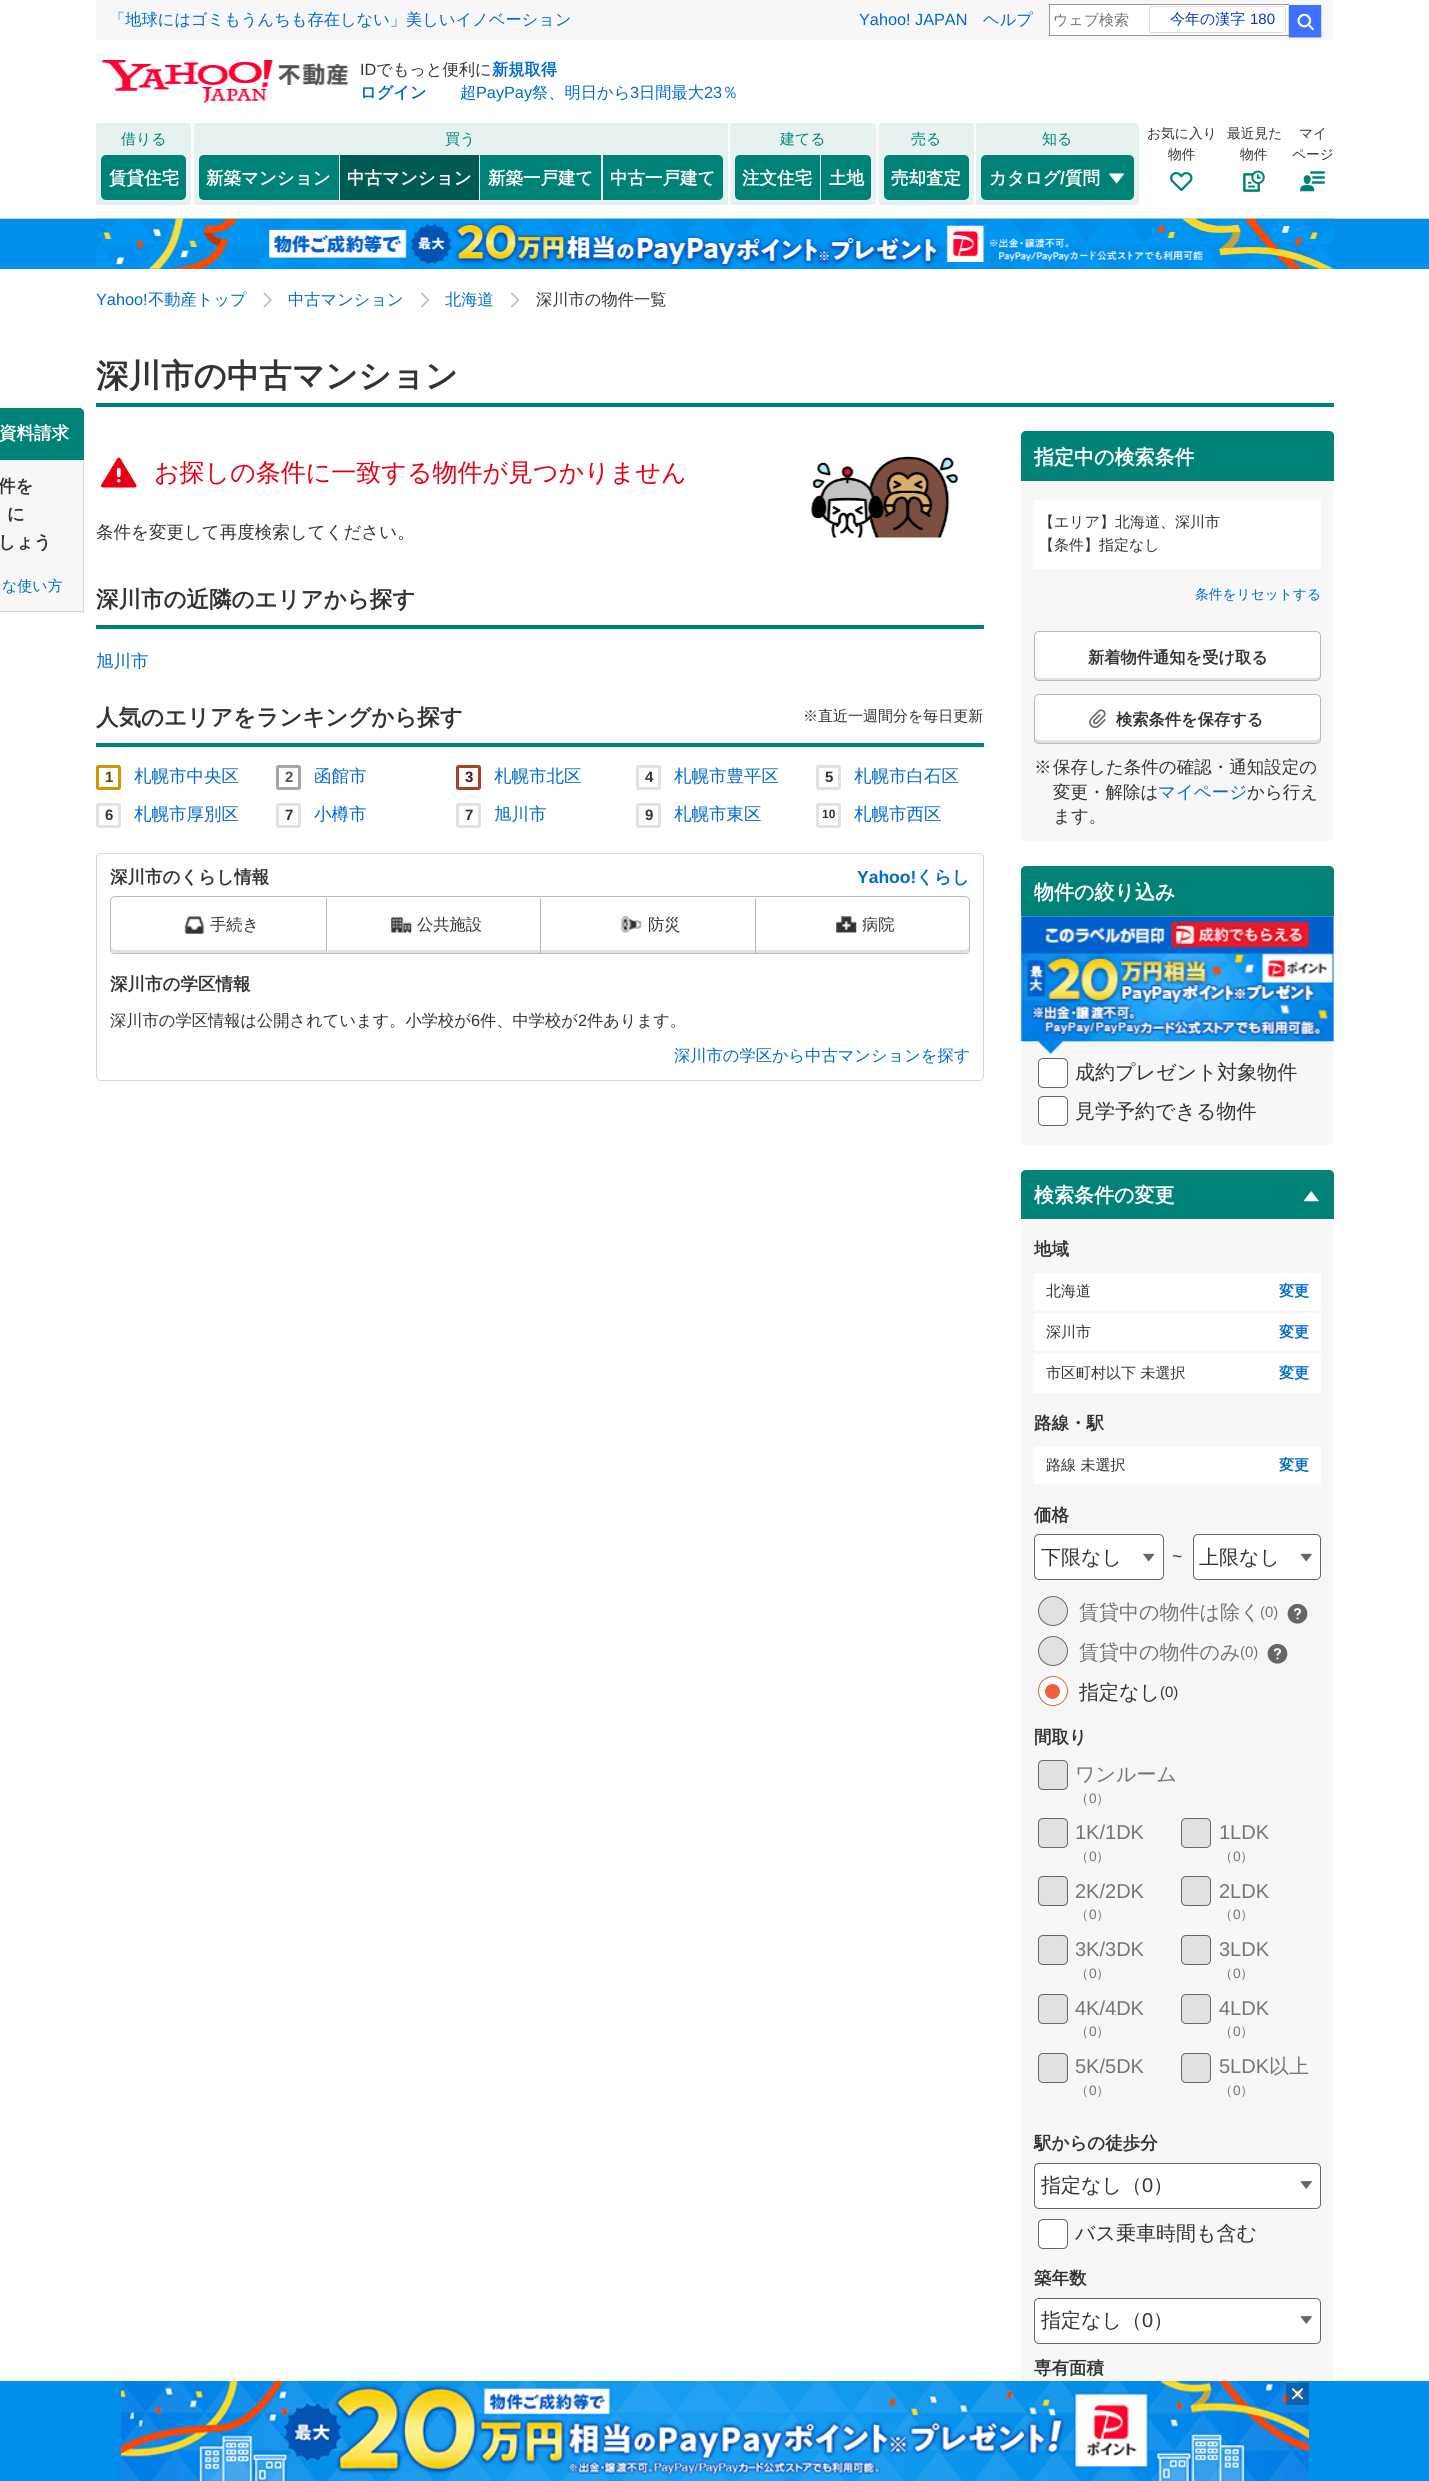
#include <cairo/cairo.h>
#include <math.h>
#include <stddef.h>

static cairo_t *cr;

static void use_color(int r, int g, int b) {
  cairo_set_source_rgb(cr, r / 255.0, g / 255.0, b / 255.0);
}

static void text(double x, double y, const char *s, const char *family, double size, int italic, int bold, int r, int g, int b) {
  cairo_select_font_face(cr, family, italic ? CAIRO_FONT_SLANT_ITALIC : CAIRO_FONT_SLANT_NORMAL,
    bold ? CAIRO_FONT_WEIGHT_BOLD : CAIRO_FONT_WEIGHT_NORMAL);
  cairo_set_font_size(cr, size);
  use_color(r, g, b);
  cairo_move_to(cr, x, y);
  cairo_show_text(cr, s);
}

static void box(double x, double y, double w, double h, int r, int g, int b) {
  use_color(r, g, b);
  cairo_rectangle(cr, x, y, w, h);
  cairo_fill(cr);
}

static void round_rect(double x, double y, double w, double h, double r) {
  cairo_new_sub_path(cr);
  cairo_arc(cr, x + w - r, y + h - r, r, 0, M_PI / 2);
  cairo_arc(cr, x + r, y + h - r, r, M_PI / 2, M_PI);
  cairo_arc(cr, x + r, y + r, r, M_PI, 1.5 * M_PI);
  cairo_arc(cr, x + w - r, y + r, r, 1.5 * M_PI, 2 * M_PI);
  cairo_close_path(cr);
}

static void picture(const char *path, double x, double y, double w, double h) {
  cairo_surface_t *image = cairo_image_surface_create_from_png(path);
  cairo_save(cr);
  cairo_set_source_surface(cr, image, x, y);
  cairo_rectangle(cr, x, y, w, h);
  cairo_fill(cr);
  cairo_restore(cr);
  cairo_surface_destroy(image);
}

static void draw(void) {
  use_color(255, 255, 255);
  cairo_paint(cr);
  box(96, 0, 1238, 40, 247, 247, 248);
  box(1050, 5, 239, 30, 255, 255, 255);
  box(1049, 4, 240, 1, 153, 153, 153);
  box(1049, 35, 240, 1, 153, 153, 153);
  box(1049, 4, 1, 32, 153, 153, 153);
  round_rect(1149.5, 6.5, 136, 26, 2);
  use_color(221, 221, 221);
  cairo_set_line_width(cr, 1);
  cairo_stroke(cr);
  picture("img_01.png", 1288, 5, 34, 33);
  picture("img_02.png", 102, 60, 247, 43);
  box(0, 218, 1429, 1, 214, 214, 214);
  use_color(230, 242, 240);
  round_rect(96, 123, 95, 82, 2.5);
  cairo_fill(cr);
  use_color(0, 130, 119);
  round_rect(101, 155, 85, 45, 5);
  cairo_fill(cr);
  use_color(230, 242, 240);
  round_rect(194, 123, 534, 82, 2.5);
  cairo_fill(cr);
  use_color(0, 130, 119);
  cairo_new_path(cr);
  cairo_move_to(cr, 204, 155);
  cairo_line_to(cr, 339, 155);
  cairo_line_to(cr, 339, 200);
  cairo_line_to(cr, 204, 200);
  cairo_curve_to(cr, 201, 200, 199, 198, 199, 195);
  cairo_line_to(cr, 199, 160);
  cairo_curve_to(cr, 199, 157, 201, 155, 204, 155);
  cairo_close_path(cr);
  cairo_fill(cr);
  box(340, 155, 139, 45, 0, 91, 83);
  box(480, 155, 121, 45, 0, 130, 119);
  cairo_new_path(cr);
  cairo_move_to(cr, 603, 155);
  cairo_line_to(cr, 718, 155);
  cairo_curve_to(cr, 721, 155, 723, 157, 723, 160);
  cairo_line_to(cr, 723, 195);
  cairo_curve_to(cr, 723, 198, 721, 200, 718, 200);
  cairo_line_to(cr, 603, 200);
  cairo_close_path(cr);
  cairo_fill(cr);
  use_color(230, 242, 240);
  round_rect(730, 123, 146, 82, 2.5);
  cairo_fill(cr);
  use_color(0, 130, 119);
  cairo_new_path(cr);
  cairo_move_to(cr, 740, 155);
  cairo_line_to(cr, 820, 155);
  cairo_line_to(cr, 820, 200);
  cairo_line_to(cr, 740, 200);
  cairo_curve_to(cr, 737, 200, 735, 198, 735, 195);
  cairo_line_to(cr, 735, 160);
  cairo_curve_to(cr, 735, 157, 737, 155, 740, 155);
  cairo_close_path(cr);
  cairo_fill(cr);
  cairo_new_path(cr);
  cairo_move_to(cr, 821, 155);
  cairo_line_to(cr, 866, 155);
  cairo_curve_to(cr, 869, 155, 871, 157, 871, 160);
  cairo_line_to(cr, 871, 195);
  cairo_curve_to(cr, 871, 198, 869, 200, 866, 200);
  cairo_line_to(cr, 821, 200);
  cairo_close_path(cr);
  cairo_fill(cr);
  use_color(230, 242, 240);
  round_rect(879, 123, 95, 82, 2.5);
  cairo_fill(cr);
  use_color(0, 130, 119);
  round_rect(884, 155, 85, 45, 5);
  cairo_fill(cr);
  use_color(230, 242, 240);
  round_rect(976, 123, 163, 82, 2.5);
  cairo_fill(cr);
  use_color(0, 130, 119);
  round_rect(981, 155, 153, 45, 5);
  cairo_fill(cr);
  picture("img_03.png", 1109, 173, 15, 11);
  picture("img_04.png", 1170, 172, 23, 19);
  picture("img_05.png", 1243, 170, 22, 22);
  picture("img_06.png", 1300, 171, 25, 21);
  box(0, 219, 1429, 50, 0, 143, 234);
  picture("img_07.png", 96, 218, 1238, 51);
  picture("img_08.png", 263, 292, 9, 16);
  picture("img_09.png", 421, 292, 8, 16);
  picture("img_09.png", 511, 292, 8, 16);
  box(96, 403, 1238, 4, 0, 130, 119);
  use_color(247, 247, 245);
  cairo_new_path(cr);
  cairo_move_to(cr, 0, 408);
  cairo_line_to(cr, 79, 408);
  cairo_curve_to(cr, 82, 408, 84, 410, 84, 413);
  cairo_line_to(cr, 84, 613);
  cairo_line_to(cr, -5, 613);
  cairo_line_to(cr, -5, 413);
  cairo_curve_to(cr, -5, 410, -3, 408, 0, 408);
  cairo_close_path(cr);
  cairo_fill(cr);
  box(83, 410, 1, 203, 214, 214, 214);
  box(0, 611, 84, 1, 214, 214, 214);
  use_color(0, 130, 119);
  cairo_new_path(cr);
  cairo_move_to(cr, 0, 408);
  cairo_line_to(cr, 79, 408);
  cairo_curve_to(cr, 82, 408, 84, 410, 84, 413);
  cairo_line_to(cr, 84, 460);
  cairo_line_to(cr, -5, 460);
  cairo_line_to(cr, -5, 413);
  cairo_curve_to(cr, -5, 410, -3, 408, 0, 408);
  cairo_close_path(cr);
  cairo_fill(cr);
  picture("img_10.png", 100, 457, 37, 31);
  picture("img_11.png", 811, 456, 148, 82);
  box(96, 625, 888, 4, 0, 130, 119);
  box(96, 743, 888, 4, 0, 130, 119);
  round_rect(97.5, 766.5, 22, 22, 1);
  use_color(208, 152, 0);
  cairo_set_line_width(cr, 3);
  cairo_stroke(cr);
  round_rect(277.5, 766.5, 22, 22, 1);
  use_color(165, 165, 165);
  cairo_stroke(cr);
  round_rect(457.5, 766.5, 22, 22, 1);
  use_color(163, 69, 35);
  cairo_stroke(cr);
  round_rect(637.5, 766.5, 22, 22, 1);
  use_color(226, 226, 226);
  cairo_stroke(cr);
  round_rect(817.5, 766.5, 22, 22, 1);
  cairo_stroke(cr);
  round_rect(97.5, 804.5, 22, 22, 1);
  cairo_stroke(cr);
  round_rect(277.5, 804.5, 22, 22, 1);
  cairo_stroke(cr);
  round_rect(457.5, 804.5, 22, 22, 1);
  cairo_stroke(cr);
  round_rect(637.5, 804.5, 22, 22, 1);
  cairo_stroke(cr);
  round_rect(817.5, 804.5, 22, 22, 1);
  cairo_stroke(cr);
  round_rect(96.5, 853.5, 887, 227, 4.5);
  use_color(214, 214, 214);
  cairo_set_line_width(cr, 1);
  cairo_stroke(cr);
  round_rect(110.5, 896.5, 859, 57, 4.5);
  use_color(187, 187, 187);
  cairo_stroke(cr);
  use_color(255, 255, 255);
  cairo_new_path(cr);
  cairo_move_to(cr, 116, 898);
  cairo_line_to(cr, 326, 898);
  cairo_line_to(cr, 326, 953);
  cairo_line_to(cr, 116, 953);
  cairo_curve_to(cr, 113, 953, 111, 951, 111, 948);
  cairo_line_to(cr, 111, 903);
  cairo_curve_to(cr, 111, 900, 113, 898, 116, 898);
  cairo_close_path(cr);
  cairo_fill(cr);
  use_color(225, 225, 225);
  cairo_new_path(cr);
  cairo_move_to(cr, 111, 945);
  cairo_line_to(cr, 111, 948);
  cairo_curve_to(cr, 111, 951, 113, 953, 116, 953);
  cairo_line_to(cr, 326, 953);
  cairo_line_to(cr, 326, 950);
  cairo_line_to(cr, 116, 950);
  cairo_curve_to(cr, 113, 950, 111, 948, 111, 945);
  cairo_close_path(cr);
  cairo_fill(cr);
  picture("img_12.png", 184, 916, 21, 18);
  box(326, 898, 1, 55, 187, 187, 187);
  box(328, 950, 212, 3, 225, 225, 225);
  picture("img_13.png", 391, 917, 21, 16);
  box(540, 898, 1, 55, 187, 187, 187);
  box(541, 950, 214, 3, 225, 225, 225);
  picture("img_14.png", 621, 916, 21, 17);
  box(755, 898, 1, 55, 187, 187, 187);
  use_color(255, 255, 255);
  cairo_new_path(cr);
  cairo_move_to(cr, 756, 898);
  cairo_line_to(cr, 964, 898);
  cairo_curve_to(cr, 967, 898, 969, 900, 969, 903);
  cairo_line_to(cr, 969, 948);
  cairo_curve_to(cr, 969, 951, 967, 953, 964, 953);
  cairo_line_to(cr, 756, 953);
  cairo_close_path(cr);
  cairo_fill(cr);
  use_color(225, 225, 225);
  cairo_new_path(cr);
  cairo_move_to(cr, 756, 950);
  cairo_line_to(cr, 756, 953);
  cairo_line_to(cr, 964, 953);
  cairo_curve_to(cr, 967, 953, 969, 951, 969, 948);
  cairo_line_to(cr, 969, 945);
  cairo_curve_to(cr, 969, 948, 967, 950, 964, 950);
  cairo_close_path(cr);
  cairo_fill(cr);
  picture("img_15.png", 836, 916, 21, 17);
  use_color(247, 247, 247);
  round_rect(1021, 431, 313, 410, 5);
  cairo_fill(cr);
  use_color(0, 130, 119);
  cairo_new_path(cr);
  cairo_move_to(cr, 1026, 431);
  cairo_line_to(cr, 1329, 431);
  cairo_curve_to(cr, 1332, 431, 1334, 433, 1334, 436);
  cairo_line_to(cr, 1334, 481);
  cairo_line_to(cr, 1021, 481);
  cairo_line_to(cr, 1021, 436);
  cairo_curve_to(cr, 1021, 433, 1023, 431, 1026, 431);
  cairo_close_path(cr);
  cairo_fill(cr);
  box(1034, 500, 287, 69, 255, 255, 255);
  round_rect(1034, 631, 287, 50, 5);
  cairo_fill(cr);
  use_color(225, 225, 225);
  cairo_new_path(cr);
  cairo_move_to(cr, 1035, 674);
  cairo_line_to(cr, 1035, 676);
  cairo_curve_to(cr, 1035, 678, 1037, 680, 1039, 680);
  cairo_line_to(cr, 1316, 680);
  cairo_curve_to(cr, 1318, 680, 1320, 678, 1320, 676);
  cairo_line_to(cr, 1320, 674);
  cairo_curve_to(cr, 1320, 676, 1318, 678, 1316, 678);
  cairo_line_to(cr, 1039, 678);
  cairo_curve_to(cr, 1037, 678, 1035, 676, 1035, 674);
  cairo_close_path(cr);
  cairo_fill(cr);
  round_rect(1034.5, 631.5, 286, 49, 4.5);
  use_color(187, 187, 187);
  cairo_stroke(cr);
  use_color(255, 255, 255);
  round_rect(1034, 694, 287, 50, 5);
  cairo_fill(cr);
  use_color(225, 225, 225);
  cairo_new_path(cr);
  cairo_move_to(cr, 1035, 736);
  cairo_curve_to(cr, 1035, 739, 1035, 742, 1038, 743);
  cairo_line_to(cr, 1317, 743);
  cairo_curve_to(cr, 1320, 742, 1320, 739, 1320, 736);
  cairo_curve_to(cr, 1320, 738, 1318, 740, 1316, 740);
  cairo_line_to(cr, 1039, 740);
  cairo_curve_to(cr, 1037, 740, 1035, 738, 1035, 736);
  cairo_close_path(cr);
  cairo_fill(cr);
  round_rect(1034.5, 694.5, 286, 49, 4.5);
  use_color(187, 187, 187);
  cairo_stroke(cr);
  picture("img_16.png", 1089, 709, 17, 20);
  use_color(247, 247, 247);
  round_rect(1021, 866, 313, 279, 5);
  cairo_fill(cr);
  use_color(0, 130, 119);
  cairo_new_path(cr);
  cairo_move_to(cr, 1026, 866);
  cairo_line_to(cr, 1329, 866);
  cairo_curve_to(cr, 1332, 866, 1334, 868, 1334, 871);
  cairo_line_to(cr, 1334, 916);
  cairo_line_to(cr, 1021, 916);
  cairo_line_to(cr, 1021, 871);
  cairo_curve_to(cr, 1021, 868, 1023, 866, 1026, 866);
  cairo_close_path(cr);
  cairo_fill(cr);
  picture("img_17.png", 1021, 916, 313, 138);
  use_color(255, 255, 255);
  round_rect(1038.5, 1058.5, 29, 29, 4.5);
  cairo_fill_preserve(cr);
  use_color(102, 102, 102);
  cairo_stroke(cr);
  use_color(255, 255, 255);
  round_rect(1038.5, 1096.5, 29, 29, 4.5);
  cairo_fill_preserve(cr);
  use_color(102, 102, 102);
  cairo_stroke(cr);
  use_color(247, 247, 247);
  round_rect(1021, 1170, 313, 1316, 5);
  cairo_fill(cr);
  use_color(0, 130, 119);
  cairo_new_path(cr);
  cairo_move_to(cr, 1026, 1170);
  cairo_line_to(cr, 1329, 1170);
  cairo_curve_to(cr, 1332, 1170, 1334, 1172, 1334, 1175);
  cairo_line_to(cr, 1334, 1219);
  cairo_line_to(cr, 1021, 1219);
  cairo_line_to(cr, 1021, 1175);
  cairo_curve_to(cr, 1021, 1172, 1023, 1170, 1026, 1170);
  cairo_close_path(cr);
  cairo_fill(cr);
  picture("img_18.png", 1303, 1191, 16, 11);
  box(1034, 1273, 287, 37, 255, 255, 255);
  box(1034, 1313, 287, 38, 255, 255, 255);
  box(1034, 1354, 287, 39, 255, 255, 255);
  box(1034, 1446, 287, 38, 255, 255, 255);
  round_rect(1034, 1534, 130, 46, 5);
  cairo_fill(cr);
  picture("img_19.png", 1143, 1553, 12, 9);
  round_rect(1034.5, 1534.5, 129, 45, 4.5);
  use_color(102, 102, 102);
  cairo_stroke(cr);
  use_color(255, 255, 255);
  round_rect(1193, 1534, 128, 46, 5);
  cairo_fill(cr);
  picture("img_20.png", 1300, 1553, 12, 9);
  round_rect(1193.5, 1534.5, 127, 45, 4.5);
  use_color(102, 102, 102);
  cairo_stroke(cr);
  use_color(225, 225, 225);
  cairo_arc(cr, 1053, 1611, 14.5, 0, 2 * M_PI);
  cairo_fill_preserve(cr);
  use_color(102, 102, 102);
  cairo_stroke(cr);
  picture("img_21.png", 1287, 1603, 21, 21);
  use_color(225, 225, 225);
  cairo_arc(cr, 1053, 1651, 14.5, 0, 2 * M_PI);
  cairo_fill_preserve(cr);
  use_color(102, 102, 102);
  cairo_stroke(cr);
  picture("img_21.png", 1267, 1643, 21, 21);
  use_color(255, 255, 255);
  cairo_arc(cr, 1053, 1691, 14.5, 0, 2 * M_PI);
  cairo_fill_preserve(cr);
  use_color(235, 97, 60);
  cairo_stroke(cr);
  cairo_arc(cr, 1052.5, 1691.5, 7.5, 0, 2 * M_PI);
  cairo_fill(cr);
  use_color(225, 225, 225);
  round_rect(1038.5, 1760.5, 29, 29, 4.5);
  cairo_fill_preserve(cr);
  use_color(102, 102, 102);
  cairo_stroke(cr);
  use_color(225, 225, 225);
  round_rect(1038.5, 1818.5, 29, 29, 4.5);
  cairo_fill_preserve(cr);
  use_color(102, 102, 102);
  cairo_stroke(cr);
  use_color(225, 225, 225);
  round_rect(1181.5, 1818.5, 29, 29, 4.5);
  cairo_fill_preserve(cr);
  use_color(102, 102, 102);
  cairo_stroke(cr);
  use_color(225, 225, 225);
  round_rect(1038.5, 1876.5, 29, 29, 4.5);
  cairo_fill_preserve(cr);
  use_color(102, 102, 102);
  cairo_stroke(cr);
  use_color(225, 225, 225);
  round_rect(1181.5, 1876.5, 29, 29, 4.5);
  cairo_fill_preserve(cr);
  use_color(102, 102, 102);
  cairo_stroke(cr);
  use_color(225, 225, 225);
  round_rect(1038.5, 1935.5, 29, 29, 4.5);
  cairo_fill_preserve(cr);
  use_color(102, 102, 102);
  cairo_stroke(cr);
  use_color(225, 225, 225);
  round_rect(1181.5, 1935.5, 29, 29, 4.5);
  cairo_fill_preserve(cr);
  use_color(102, 102, 102);
  cairo_stroke(cr);
  use_color(225, 225, 225);
  round_rect(1038.5, 1994.5, 29, 29, 4.5);
  cairo_fill_preserve(cr);
  use_color(102, 102, 102);
  cairo_stroke(cr);
  use_color(225, 225, 225);
  round_rect(1181.5, 1994.5, 29, 29, 4.5);
  cairo_fill_preserve(cr);
  use_color(102, 102, 102);
  cairo_stroke(cr);
  use_color(225, 225, 225);
  round_rect(1038.5, 2053.5, 29, 29, 4.5);
  cairo_fill_preserve(cr);
  use_color(102, 102, 102);
  cairo_stroke(cr);
  use_color(225, 225, 225);
  round_rect(1181.5, 2053.5, 29, 29, 4.5);
  cairo_fill_preserve(cr);
  use_color(102, 102, 102);
  cairo_stroke(cr);
  use_color(255, 255, 255);
  round_rect(1034, 2163, 287, 46, 5);
  cairo_fill(cr);
  picture("img_22.png", 1300, 2180, 12, 9);
  round_rect(1034.5, 2163.5, 286, 45, 4.5);
  use_color(102, 102, 102);
  cairo_stroke(cr);
  use_color(255, 255, 255);
  round_rect(1038.5, 2219.5, 29, 29, 4.5);
  cairo_fill_preserve(cr);
  use_color(102, 102, 102);
  cairo_stroke(cr);
  use_color(255, 255, 255);
  round_rect(1034, 2298, 287, 46, 5);
  cairo_fill(cr);
  picture("img_22.png", 1300, 2315, 12, 9);
  round_rect(1034.5, 2298.5, 286, 45, 4.5);
  use_color(102, 102, 102);
  cairo_stroke(cr);
  box(0, 2381, 1429, 100, 0, 143, 234);
  picture("img_23.png", 121, 2381, 1188, 100);
  cairo_set_source_rgba(cr, 0, 0, 0, 0.25);
  cairo_rectangle(cr, 1286, 2383, 23, 22);
  cairo_fill(cr);
  picture("img_24.png", 1292, 2388, 11, 12);
  text(109, 25, "「地球にはゴミもうんちも存在しない」美しいイノベーション", "WenQuanYi Zen Hei Medium", 16.25, 0, 0, 0, 106, 204);
  text(859, 25, "Yahoo! JAPAN", "Liberation Sans", 16.25, 0, 0, 0, 106, 204);
  text(983, 25, "ヘルプ", "WenQuanYi Zen Hei Medium", 16.25, 0, 0, 0, 106, 204);
  text(1053, 25, "ウェブ検索", "WenQuanYi Zen Hei Medium", 15, 0, 0, 117, 117, 117);
  text(1170, 24, "今年の漢字", "WenQuanYi Zen Hei Medium", 15, 0, 0, 0, 51, 204);
  text(1250, 24, "180", "Liberation Sans", 15, 0, 0, 0, 51, 204);
  text(360, 75, "ID", "Liberation Sans", 16.25, 0, 0, 51, 51, 51);
  text(376, 75, "でもっと便利に", "WenQuanYi Zen Hei Medium", 16.25, 0, 0, 51, 51, 51);
  text(492, 75, "新規取得", "WenQuanYi Zen Hei", 16.25, 0, 1, 0, 106, 204);
  text(360, 98, "ログイン", "WenQuanYi Zen Hei", 16.25, 0, 1, 0, 106, 204);
  text(460, 98, "超", "WenQuanYi Zen Hei Medium", 16.25, 0, 0, 0, 106, 204);
  text(476, 98, "PayPay", "Liberation Sans", 16.25, 0, 0, 0, 106, 204);
  text(532, 98, "祭、明日から", "WenQuanYi Zen Hei Medium", 16.25, 0, 0, 0, 106, 204);
  text(630, 98, "3", "Liberation Sans", 16.25, 0, 0, 0, 106, 204);
  text(639, 98, "日間最大", "WenQuanYi Zen Hei Medium", 16.25, 0, 0, 0, 106, 204);
  text(704, 98, "23", "Liberation Sans", 16.25, 0, 0, 0, 106, 204);
  text(722, 98, "％", "WenQuanYi Zen Hei Medium", 16.25, 0, 0, 0, 106, 204);
  text(121, 144, "借りる", "WenQuanYi Zen Hei Medium", 15, 0, 0, 0, 130, 119);
  text(109, 184, "賃貸住宅", "WenQuanYi Zen Hei", 17.5, 0, 1, 255, 255, 255);
  text(445, 144, "買う", "WenQuanYi Zen Hei Medium", 15, 0, 0, 0, 130, 119);
  text(206, 184, "新築マンション", "WenQuanYi Zen Hei", 17.5, 0, 1, 255, 255, 255);
  text(347, 184, "中古マンション", "WenQuanYi Zen Hei", 17.5, 0, 1, 255, 255, 255);
  text(488, 184, "新築一戸建て", "WenQuanYi Zen Hei", 17.5, 0, 1, 255, 255, 255);
  text(610, 184, "中古一戸建て", "WenQuanYi Zen Hei", 17.5, 0, 1, 255, 255, 255);
  text(780, 144, "建てる", "WenQuanYi Zen Hei Medium", 15, 0, 0, 0, 130, 119);
  text(742, 184, "注文住宅", "WenQuanYi Zen Hei", 17.5, 0, 1, 255, 255, 255);
  text(829, 184, "土地", "WenQuanYi Zen Hei", 17.5, 0, 1, 255, 255, 255);
  text(911, 144, "売る", "WenQuanYi Zen Hei Medium", 15, 0, 0, 0, 130, 119);
  text(891, 184, "売却査定", "WenQuanYi Zen Hei", 17.5, 0, 1, 255, 255, 255);
  text(1042, 144, "知る", "WenQuanYi Zen Hei Medium", 15, 0, 0, 0, 130, 119);
  text(989, 184, "カタログ", "WenQuanYi Zen Hei", 17.5, 0, 1, 255, 255, 255);
  text(1060, 184, "/", "Liberation Sans", 17.5, 0, 1, 255, 255, 255);
  text(1065, 184, "質問", "WenQuanYi Zen Hei", 17.5, 0, 1, 255, 255, 255);
  text(1147, 138, "お気に入り", "WenQuanYi Zen Hei Medium", 13.75, 0, 0, 51, 51, 51);
  text(1168, 159, "物件", "WenQuanYi Zen Hei Medium", 13.75, 0, 0, 51, 51, 51);
  text(1227, 138, "最近見た", "WenQuanYi Zen Hei Medium", 13.75, 0, 0, 51, 51, 51);
  text(1240, 159, "物件", "WenQuanYi Zen Hei Medium", 13.75, 0, 0, 51, 51, 51);
  text(1299, 138, "マイ", "WenQuanYi Zen Hei Medium", 13.75, 0, 0, 51, 51, 51);
  text(1292, 159, "ページ", "WenQuanYi Zen Hei Medium", 13.75, 0, 0, 51, 51, 51);
  text(96, 305, "Yahoo!", "Liberation Sans", 16.25, 0, 0, 0, 106, 204);
  text(148, 305, "不動産トップ", "WenQuanYi Zen Hei Medium", 16.25, 0, 0, 0, 106, 204);
  text(288, 305, "中古マンション", "WenQuanYi Zen Hei Medium", 16.25, 0, 0, 0, 106, 204);
  text(445, 305, "北海道", "WenQuanYi Zen Hei Medium", 16.25, 0, 0, 0, 106, 204);
  text(536, 305, "深川市の物件一覧", "WenQuanYi Zen Hei Medium", 16.25, 0, 0, 51, 51, 51);
  text(96, 387, "深川市の中古マンション", "WenQuanYi Zen Hei", 32.5, 0, 1, 51, 51, 51);
  text(-1, 439, "資料請求", "WenQuanYi Zen Hei", 17.5, 0, 1, 255, 255, 255);
  text(-2, 492, "件を", "WenQuanYi Zen Hei", 17.5, 0, 1, 51, 51, 51);
  text(7, 520, "に", "WenQuanYi Zen Hei", 17.5, 0, 1, 51, 51, 51);
  text(-2, 548, "しょう", "WenQuanYi Zen Hei", 17.5, 0, 1, 51, 51, 51);
  text(2, 591, "な使い方", "WenQuanYi Zen Hei Medium", 15, 0, 0, 0, 106, 204);
  text(154, 481, "お探しの条件に一致する物件が見つかりません", "WenQuanYi Zen Hei Medium", 25, 0, 0, 230, 0, 19);
  text(96, 538, "条件を変更して再度検索してください。", "WenQuanYi Zen Hei Medium", 17.5, 0, 0, 51, 51, 51);
  text(96, 607, "深川市の近隣のエリアから探す", "WenQuanYi Zen Hei", 22.5, 0, 1, 51, 51, 51);
  text(96, 667, "旭川市", "WenQuanYi Zen Hei Medium", 17.5, 0, 0, 0, 106, 204);
  text(96, 725, "人気のエリアをランキングから探す", "WenQuanYi Zen Hei", 22.5, 0, 1, 51, 51, 51);
  text(803, 721, "※直近一週間分を毎日更新", "WenQuanYi Zen Hei Medium", 15, 0, 0, 51, 51, 51);
  text(105, 782, "1", "Liberation Sans", 15, 0, 1, 96, 66, 0);
  text(134, 782, "札幌市中央区", "WenQuanYi Zen Hei Medium", 17.5, 0, 0, 0, 106, 204);
  text(285, 782, "2", "Liberation Sans", 15, 0, 1, 82, 82, 82);
  text(314, 782, "函館市", "WenQuanYi Zen Hei Medium", 17.5, 0, 0, 0, 106, 204);
  text(465, 782, "3", "Liberation Sans", 15, 0, 1, 75, 21, 0);
  text(494, 782, "札幌市北区", "WenQuanYi Zen Hei Medium", 17.5, 0, 0, 0, 106, 204);
  text(645, 782, "4", "Liberation Sans", 15, 0, 1, 51, 51, 51);
  text(674, 782, "札幌市豊平区", "WenQuanYi Zen Hei Medium", 17.5, 0, 0, 0, 106, 204);
  text(825, 782, "5", "Liberation Sans", 15, 0, 1, 51, 51, 51);
  text(854, 782, "札幌市白石区", "WenQuanYi Zen Hei Medium", 17.5, 0, 0, 0, 106, 204);
  text(105, 820, "6", "Liberation Sans", 15, 0, 1, 51, 51, 51);
  text(134, 820, "札幌市厚別区", "WenQuanYi Zen Hei Medium", 17.5, 0, 0, 0, 106, 204);
  text(285, 820, "7", "Liberation Sans", 15, 0, 1, 51, 51, 51);
  text(314, 820, "小樽市", "WenQuanYi Zen Hei Medium", 17.5, 0, 0, 0, 106, 204);
  text(465, 820, "7", "Liberation Sans", 15, 0, 1, 51, 51, 51);
  text(494, 820, "旭川市", "WenQuanYi Zen Hei Medium", 17.5, 0, 0, 0, 106, 204);
  text(645, 820, "9", "Liberation Sans", 15, 0, 1, 51, 51, 51);
  text(674, 820, "札幌市東区", "WenQuanYi Zen Hei Medium", 17.5, 0, 0, 0, 106, 204);
  text(822, 818, "10", "Liberation Sans", 12, 0, 1, 51, 51, 51);
  text(854, 820, "札幌市西区", "WenQuanYi Zen Hei Medium", 17.5, 0, 0, 0, 106, 204);
  text(110, 883, "深川市のくらし情報", "WenQuanYi Zen Hei", 17.5, 0, 1, 51, 51, 51);
  text(857, 883, "Yahoo!", "Liberation Sans", 17.5, 0, 1, 0, 106, 204);
  text(916, 883, "くらし", "WenQuanYi Zen Hei", 17.5, 0, 1, 0, 106, 204);
  text(210, 930, "手続き", "WenQuanYi Zen Hei Medium", 16.25, 0, 0, 51, 51, 51);
  text(417, 930, "公共施設", "WenQuanYi Zen Hei Medium", 16.25, 0, 0, 51, 51, 51);
  text(648, 930, "防災", "WenQuanYi Zen Hei Medium", 16.25, 0, 0, 51, 51, 51);
  text(862, 930, "病院", "WenQuanYi Zen Hei Medium", 16.25, 0, 0, 51, 51, 51);
  text(110, 990, "深川市の学区情報", "WenQuanYi Zen Hei", 17.5, 0, 1, 51, 51, 51);
  text(110, 1026, "深川市の学区情報は公開されています。小学校が", "WenQuanYi Zen Hei Medium", 16.25, 0, 0, 51, 51, 51);
  text(471, 1026, "6", "Liberation Sans", 16.25, 0, 0, 51, 51, 51);
  text(480, 1026, "件、中学校が", "WenQuanYi Zen Hei Medium", 16.25, 0, 0, 51, 51, 51);
  text(578, 1026, "2", "Liberation Sans", 16.25, 0, 0, 51, 51, 51);
  text(587, 1026, "件あります。", "WenQuanYi Zen Hei Medium", 16.25, 0, 0, 51, 51, 51);
  text(674, 1061, "深川市の学区から中古マンションを探す", "WenQuanYi Zen Hei Medium", 16.25, 0, 0, 0, 106, 204);
  text(1034, 464, "指定中の検索条件", "WenQuanYi Zen Hei", 20, 0, 1, 255, 255, 255);
  text(1039, 527, "【エリア】北海道、深川市", "WenQuanYi Zen Hei Medium", 15, 0, 0, 51, 51, 51);
  text(1039, 550, "【条件】指定なし", "WenQuanYi Zen Hei Medium", 15, 0, 0, 51, 51, 51);
  text(1195, 599, "条件をリセットする", "WenQuanYi Zen Hei Medium", 13.75, 0, 0, 0, 106, 204);
  text(1088, 663, "新着物件通知を受け取る", "WenQuanYi Zen Hei", 16.25, 0, 1, 51, 51, 51);
  text(1116, 725, "検索条件を保存する", "WenQuanYi Zen Hei", 16.25, 0, 1, 51, 51, 51);
  text(1034, 773, "※", "WenQuanYi Zen Hei Medium", 17.5, 0, 0, 51, 51, 51);
  text(1053, 773, "保存した条件の確認・通知設定の", "WenQuanYi Zen Hei Medium", 17.5, 0, 0, 51, 51, 51);
  text(1053, 798, "変更・解除は", "WenQuanYi Zen Hei Medium", 17.5, 0, 0, 51, 51, 51);
  text(1158, 798, "マイページ", "WenQuanYi Zen Hei Medium", 17.5, 0, 0, 0, 106, 204);
  text(1247, 798, "から行え", "WenQuanYi Zen Hei Medium", 17.5, 0, 0, 51, 51, 51);
  text(1053, 822, "ます。", "WenQuanYi Zen Hei Medium", 17.5, 0, 0, 51, 51, 51);
  text(1034, 899, "物件の絞り込み", "WenQuanYi Zen Hei", 20, 0, 1, 255, 255, 255);
  text(1075, 1079, "成約プレゼント対象物件", "WenQuanYi Zen Hei Medium", 20, 0, 0, 51, 51, 51);
  text(1075, 1118, "見学予約できる物件", "WenQuanYi Zen Hei Medium", 20, 0, 0, 51, 51, 51);
  text(1034, 1202, "検索条件の変更", "WenQuanYi Zen Hei", 20, 0, 1, 255, 255, 255);
  text(1034, 1255, "地域", "WenQuanYi Zen Hei", 17.5, 0, 1, 51, 51, 51);
  text(1046, 1296, "北海道", "WenQuanYi Zen Hei Medium", 15, 0, 0, 51, 51, 51);
  text(1279, 1296, "変更", "WenQuanYi Zen Hei", 15, 0, 1, 0, 106, 204);
  text(1046, 1337, "深川市", "WenQuanYi Zen Hei Medium", 15, 0, 0, 51, 51, 51);
  text(1279, 1337, "変更", "WenQuanYi Zen Hei", 15, 0, 1, 0, 106, 204);
  text(1046, 1378, "市区町村以下 未選択", "WenQuanYi Zen Hei Medium", 15, 0, 0, 51, 51, 51);
  text(1279, 1378, "変更", "WenQuanYi Zen Hei", 15, 0, 1, 0, 106, 204);
  text(1034, 1429, "路線・駅", "WenQuanYi Zen Hei", 17.5, 0, 1, 51, 51, 51);
  text(1046, 1470, "路線 未選択", "WenQuanYi Zen Hei Medium", 15, 0, 0, 51, 51, 51);
  text(1279, 1470, "変更", "WenQuanYi Zen Hei", 15, 0, 1, 0, 106, 204);
  text(1034, 1521, "価格", "WenQuanYi Zen Hei", 17.5, 0, 1, 51, 51, 51);
  text(1041, 1564, "下限なし", "WenQuanYi Zen Hei Medium", 20, 0, 0, 51, 51, 51);
  text(1172, 1562, "~", "Liberation Sans", 17.5, 0, 0, 51, 51, 51);
  text(1199, 1564, "上限なし", "WenQuanYi Zen Hei Medium", 20, 0, 0, 51, 51, 51);
  text(1079, 1619, "賃貸中の物件は除く", "WenQuanYi Zen Hei Medium", 20, 0, 0, 117, 117, 117);
  text(1260, 1617, "(0)", "Liberation Sans", 15, 0, 0, 117, 117, 117);
  text(1079, 1659, "賃貸中の物件のみ", "WenQuanYi Zen Hei Medium", 20, 0, 0, 117, 117, 117);
  text(1240, 1657, "(0)", "Liberation Sans", 15, 0, 0, 117, 117, 117);
  text(1079, 1699, "指定なし", "WenQuanYi Zen Hei Medium", 20, 0, 0, 51, 51, 51);
  text(1160, 1697, "(0)", "Liberation Sans", 15, 0, 0, 51, 51, 51);
  text(1034, 1743, "間取り", "WenQuanYi Zen Hei", 17.5, 0, 1, 51, 51, 51);
  text(1075, 1781, "ワンルーム", "WenQuanYi Zen Hei Medium", 20, 0, 0, 117, 117, 117);
  text(1075, 1803, "（", "WenQuanYi Zen Hei Medium", 13.75, 0, 0, 117, 117, 117);
  text(1089, 1803, "0", "Liberation Sans", 13.75, 0, 0, 117, 117, 117);
  text(1096, 1803, "）", "WenQuanYi Zen Hei Medium", 13.75, 0, 0, 117, 117, 117);
  text(1075, 1839, "1K/1DK", "Liberation Sans", 20, 0, 0, 117, 117, 117);
  text(1075, 1861, "（", "WenQuanYi Zen Hei Medium", 13.75, 0, 0, 117, 117, 117);
  text(1089, 1861, "0", "Liberation Sans", 13.75, 0, 0, 117, 117, 117);
  text(1096, 1861, "）", "WenQuanYi Zen Hei Medium", 13.75, 0, 0, 117, 117, 117);
  text(1219, 1839, "1LDK", "Liberation Sans", 20, 0, 0, 117, 117, 117);
  text(1219, 1861, "（", "WenQuanYi Zen Hei Medium", 13.75, 0, 0, 117, 117, 117);
  text(1233, 1861, "0", "Liberation Sans", 13.75, 0, 0, 117, 117, 117);
  text(1240, 1861, "）", "WenQuanYi Zen Hei Medium", 13.75, 0, 0, 117, 117, 117);
  text(1075, 1898, "2K/2DK", "Liberation Sans", 20, 0, 0, 117, 117, 117);
  text(1075, 1919, "（", "WenQuanYi Zen Hei Medium", 13.75, 0, 0, 117, 117, 117);
  text(1089, 1919, "0", "Liberation Sans", 13.75, 0, 0, 117, 117, 117);
  text(1096, 1919, "）", "WenQuanYi Zen Hei Medium", 13.75, 0, 0, 117, 117, 117);
  text(1219, 1898, "2LDK", "Liberation Sans", 20, 0, 0, 117, 117, 117);
  text(1219, 1919, "（", "WenQuanYi Zen Hei Medium", 13.75, 0, 0, 117, 117, 117);
  text(1233, 1919, "0", "Liberation Sans", 13.75, 0, 0, 117, 117, 117);
  text(1240, 1919, "）", "WenQuanYi Zen Hei Medium", 13.75, 0, 0, 117, 117, 117);
  text(1075, 1956, "3K/3DK", "Liberation Sans", 20, 0, 0, 117, 117, 117);
  text(1075, 1978, "（", "WenQuanYi Zen Hei Medium", 13.75, 0, 0, 117, 117, 117);
  text(1089, 1978, "0", "Liberation Sans", 13.75, 0, 0, 117, 117, 117);
  text(1096, 1978, "）", "WenQuanYi Zen Hei Medium", 13.75, 0, 0, 117, 117, 117);
  text(1219, 1956, "3LDK", "Liberation Sans", 20, 0, 0, 117, 117, 117);
  text(1219, 1978, "（", "WenQuanYi Zen Hei Medium", 13.75, 0, 0, 117, 117, 117);
  text(1233, 1978, "0", "Liberation Sans", 13.75, 0, 0, 117, 117, 117);
  text(1240, 1978, "）", "WenQuanYi Zen Hei Medium", 13.75, 0, 0, 117, 117, 117);
  text(1075, 2015, "4K/4DK", "Liberation Sans", 20, 0, 0, 117, 117, 117);
  text(1075, 2036, "（", "WenQuanYi Zen Hei Medium", 13.75, 0, 0, 117, 117, 117);
  text(1089, 2036, "0", "Liberation Sans", 13.75, 0, 0, 117, 117, 117);
  text(1096, 2036, "）", "WenQuanYi Zen Hei Medium", 13.75, 0, 0, 117, 117, 117);
  text(1219, 2015, "4LDK", "Liberation Sans", 20, 0, 0, 117, 117, 117);
  text(1219, 2036, "（", "WenQuanYi Zen Hei Medium", 13.75, 0, 0, 117, 117, 117);
  text(1233, 2036, "0", "Liberation Sans", 13.75, 0, 0, 117, 117, 117);
  text(1240, 2036, "）", "WenQuanYi Zen Hei Medium", 13.75, 0, 0, 117, 117, 117);
  text(1075, 2073, "5K/5DK", "Liberation Sans", 20, 0, 0, 117, 117, 117);
  text(1075, 2095, "（", "WenQuanYi Zen Hei Medium", 13.75, 0, 0, 117, 117, 117);
  text(1089, 2095, "0", "Liberation Sans", 13.75, 0, 0, 117, 117, 117);
  text(1096, 2095, "）", "WenQuanYi Zen Hei Medium", 13.75, 0, 0, 117, 117, 117);
  text(1219, 2073, "5LDK", "Liberation Sans", 20, 0, 0, 117, 117, 117);
  text(1269, 2073, "以上", "WenQuanYi Zen Hei Medium", 20, 0, 0, 117, 117, 117);
  text(1219, 2095, "（", "WenQuanYi Zen Hei Medium", 13.75, 0, 0, 117, 117, 117);
  text(1233, 2095, "0", "Liberation Sans", 13.75, 0, 0, 117, 117, 117);
  text(1240, 2095, "）", "WenQuanYi Zen Hei Medium", 13.75, 0, 0, 117, 117, 117);
  text(1034, 2149, "駅からの徒歩分", "WenQuanYi Zen Hei", 17.5, 0, 1, 51, 51, 51);
  text(1041, 2192, "指定なし（", "WenQuanYi Zen Hei Medium", 20, 0, 0, 51, 51, 51);
  text(1142, 2192, "0", "Liberation Sans", 20, 0, 0, 51, 51, 51);
  text(1153, 2192, "）", "WenQuanYi Zen Hei Medium", 20, 0, 0, 51, 51, 51);
  text(1075, 2240, "バス乗車時間も含む", "WenQuanYi Zen Hei Medium", 20, 0, 0, 51, 51, 51);
  text(1034, 2284, "築年数", "WenQuanYi Zen Hei", 17.5, 0, 1, 51, 51, 51);
  text(1041, 2327, "指定なし（", "WenQuanYi Zen Hei Medium", 20, 0, 0, 51, 51, 51);
  text(1142, 2327, "0", "Liberation Sans", 20, 0, 0, 51, 51, 51);
  text(1153, 2327, "）", "WenQuanYi Zen Hei Medium", 20, 0, 0, 51, 51, 51);
  text(1034, 2374, "専有面積", "WenQuanYi Zen Hei", 17.5, 0, 1, 51, 51, 51);
}

int main(void) {
  cairo_surface_t *surface = cairo_image_surface_create(CAIRO_FORMAT_RGB24, 1429, 2481);
  cr = cairo_create(surface);
  cairo_font_options_t *options = cairo_font_options_create();
  cairo_font_options_set_hint_metrics(options, CAIRO_HINT_METRICS_OFF);
  cairo_font_options_set_hint_style(options, CAIRO_HINT_STYLE_NONE);
  cairo_set_font_options(cr, options);
  cairo_set_miter_limit(cr, 4);
  draw();
  cairo_surface_write_to_png(surface, "out.png");
  cairo_font_options_destroy(options);
  cairo_destroy(cr);
  cairo_surface_destroy(surface);
  return 0;
}
